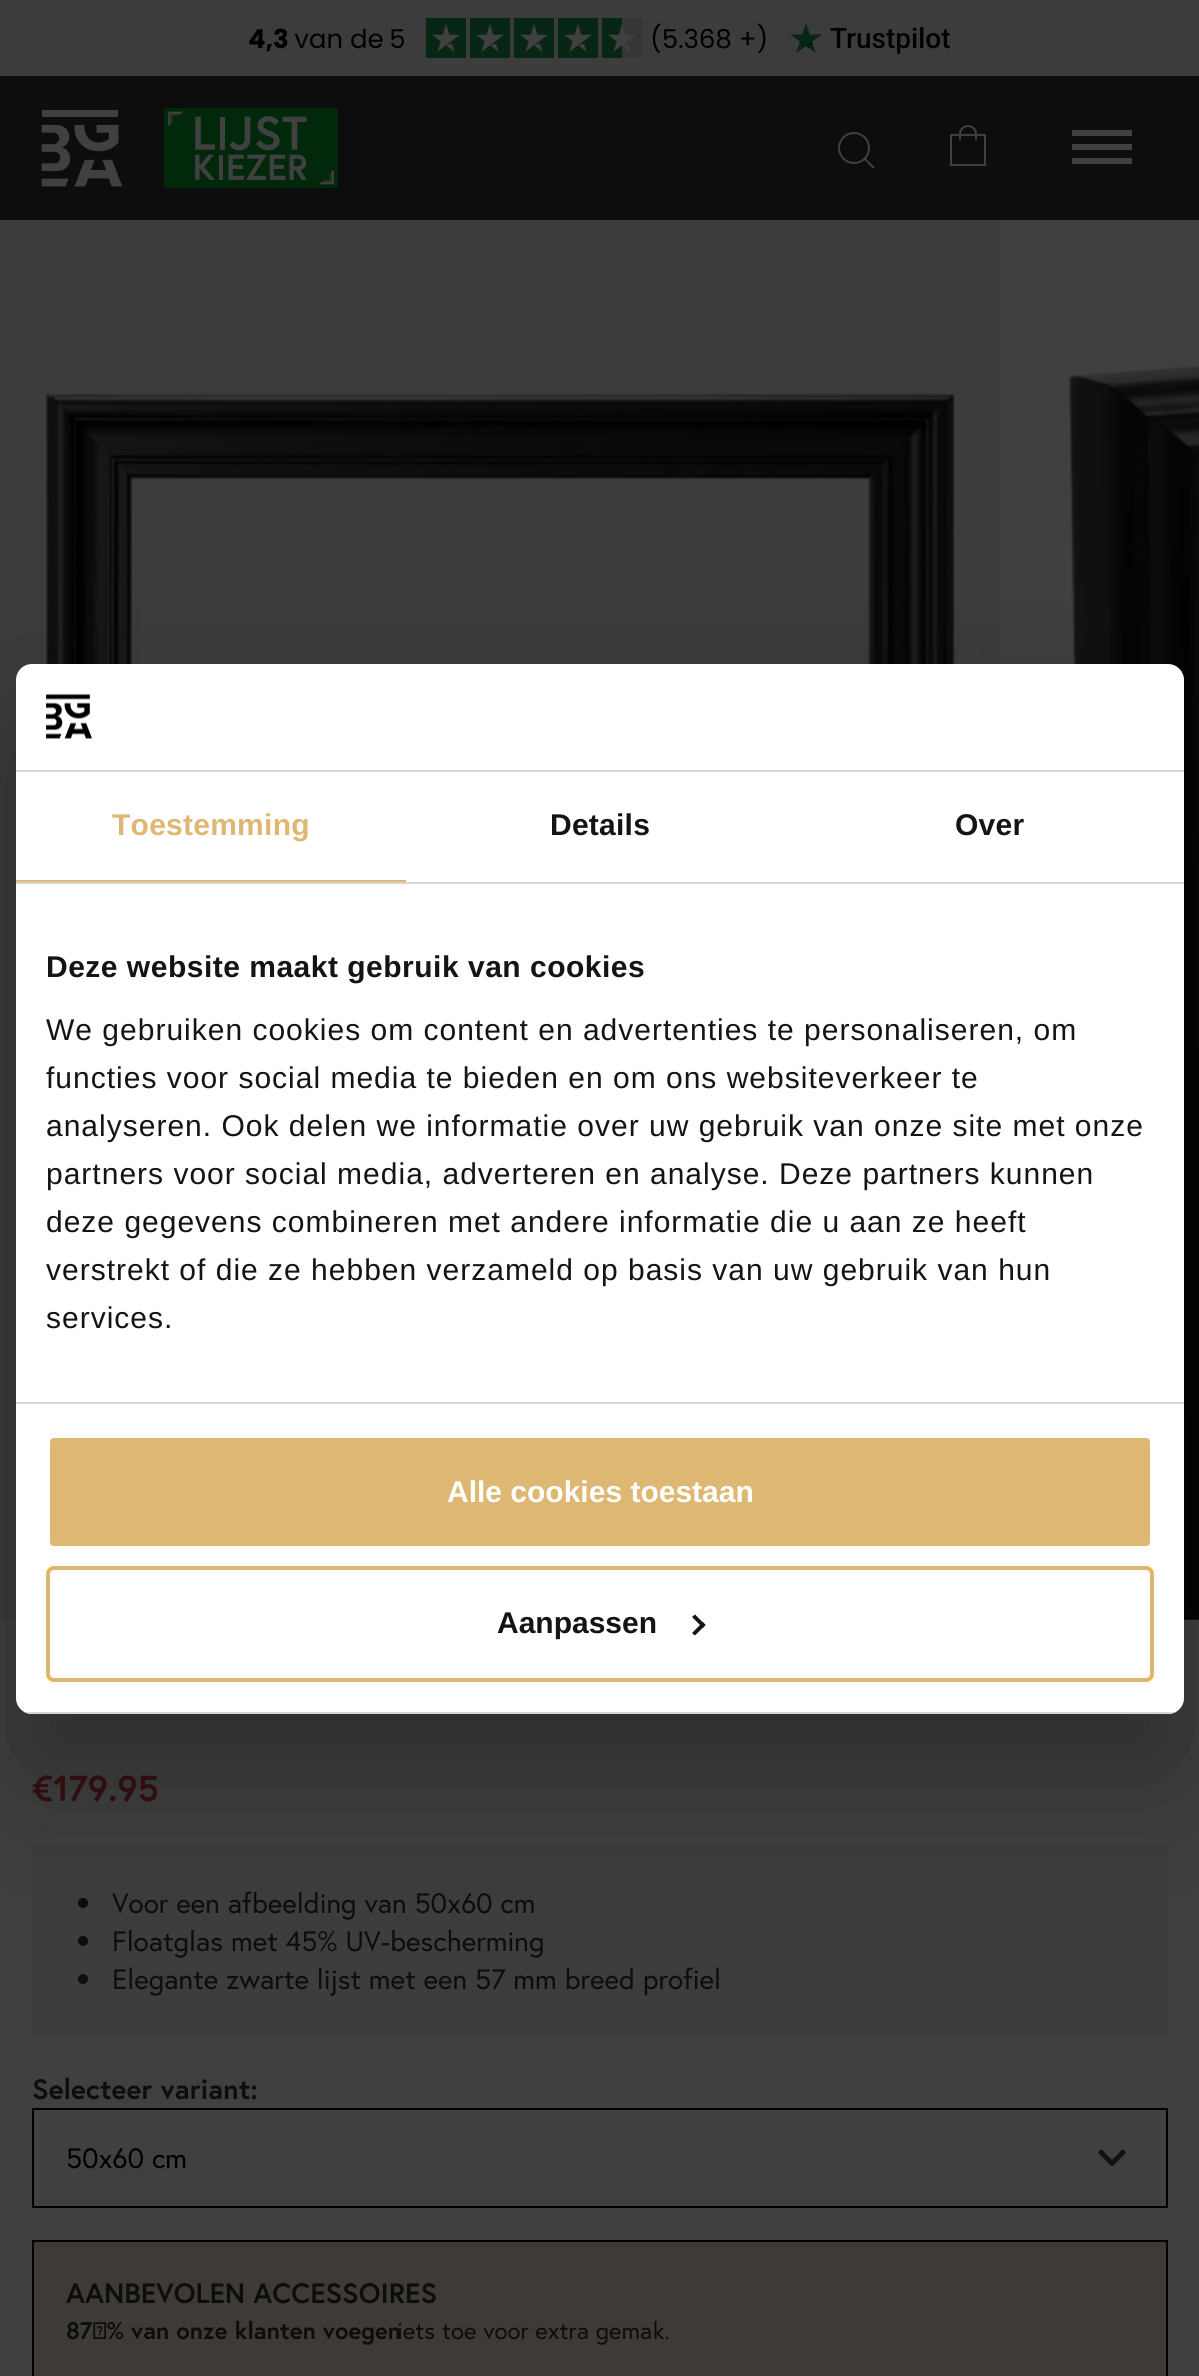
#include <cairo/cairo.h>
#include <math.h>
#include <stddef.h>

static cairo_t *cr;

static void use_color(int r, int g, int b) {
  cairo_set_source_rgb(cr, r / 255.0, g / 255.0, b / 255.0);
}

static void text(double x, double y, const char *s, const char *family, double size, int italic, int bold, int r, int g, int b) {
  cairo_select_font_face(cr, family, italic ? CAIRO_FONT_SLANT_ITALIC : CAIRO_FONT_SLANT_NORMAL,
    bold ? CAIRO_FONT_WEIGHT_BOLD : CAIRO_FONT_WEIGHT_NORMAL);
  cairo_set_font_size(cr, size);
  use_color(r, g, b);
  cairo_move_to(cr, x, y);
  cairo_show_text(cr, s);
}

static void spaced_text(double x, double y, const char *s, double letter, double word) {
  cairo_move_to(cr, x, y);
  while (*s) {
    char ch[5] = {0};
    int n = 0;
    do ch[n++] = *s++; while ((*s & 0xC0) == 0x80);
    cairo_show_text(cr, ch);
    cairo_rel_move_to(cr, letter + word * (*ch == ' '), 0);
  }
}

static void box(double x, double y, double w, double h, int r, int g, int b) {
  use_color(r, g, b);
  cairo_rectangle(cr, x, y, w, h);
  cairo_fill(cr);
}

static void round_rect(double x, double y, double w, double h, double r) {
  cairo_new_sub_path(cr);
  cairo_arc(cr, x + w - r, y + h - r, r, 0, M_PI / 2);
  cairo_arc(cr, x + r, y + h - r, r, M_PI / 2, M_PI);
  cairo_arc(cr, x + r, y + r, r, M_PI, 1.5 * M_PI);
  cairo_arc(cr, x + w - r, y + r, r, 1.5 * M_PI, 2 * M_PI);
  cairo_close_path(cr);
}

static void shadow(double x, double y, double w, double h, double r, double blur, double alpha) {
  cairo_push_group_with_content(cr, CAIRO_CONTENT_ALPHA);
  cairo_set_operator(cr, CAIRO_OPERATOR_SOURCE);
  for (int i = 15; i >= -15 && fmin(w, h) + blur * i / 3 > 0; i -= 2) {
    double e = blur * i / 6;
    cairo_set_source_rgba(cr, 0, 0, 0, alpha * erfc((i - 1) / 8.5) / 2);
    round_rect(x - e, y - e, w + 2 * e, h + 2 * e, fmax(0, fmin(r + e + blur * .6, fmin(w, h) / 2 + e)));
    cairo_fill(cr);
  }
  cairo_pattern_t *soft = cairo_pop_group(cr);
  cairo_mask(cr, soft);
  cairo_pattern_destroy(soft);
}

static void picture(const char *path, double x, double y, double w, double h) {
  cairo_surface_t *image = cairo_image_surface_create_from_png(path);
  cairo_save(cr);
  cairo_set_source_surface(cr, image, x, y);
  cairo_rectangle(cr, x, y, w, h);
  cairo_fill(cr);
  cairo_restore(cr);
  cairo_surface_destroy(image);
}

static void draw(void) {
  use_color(64, 64, 64);
  cairo_paint(cr);
  box(0, 0, 1199, 76, 61, 61, 61);
  picture("img_01.png", 249, 18, 701, 40);
  box(0, 76, 1199, 144, 13, 13, 13);
  picture("img_02.png", 41, 110, 82, 77);
  picture("img_03.png", 164, 108, 174, 80);
  cairo_arc(cr, 854, 148, 15, 0, 2 * M_PI);
  use_color(64, 64, 64);
  cairo_stroke(cr);
  cairo_new_path(cr);
  cairo_move_to(cr, 864, 158);
  cairo_line_to(cr, 874, 168);
  cairo_stroke(cr);
  cairo_new_path(cr);
  cairo_move_to(cr, 951, 135);
  cairo_line_to(cr, 985, 135);
  cairo_line_to(cr, 985, 165);
  cairo_line_to(cr, 951, 165);
  cairo_close_path(cr);
  cairo_move_to(cr, 960, 140);
  cairo_line_to(cr, 960, 134);
  cairo_curve_to(cr, 960, 129.5, 963.5, 126, 968, 126);
  cairo_curve_to(cr, 972.5, 126, 976, 129.5, 976, 134);
  cairo_line_to(cr, 976, 140);
  cairo_stroke(cr);
  box(1072, 130, 60, 6, 64, 64, 64);
  box(1072, 144, 60, 6, 64, 64, 64);
  box(1072, 158, 60, 6, 64, 64, 64);
  picture("img_05.png", 0, 220, 1000, 1400);
  picture("img_06.png", 1065, 365, 134, 1255);
  box(32, 1844, 1136, 194, 61, 61, 61);
  use_color(13, 13, 13);
  cairo_arc(cr, 83, 1903, 5, 0, 2 * M_PI);
  cairo_fill(cr);
  cairo_arc(cr, 83, 1941, 5, 0, 2 * M_PI);
  cairo_fill(cr);
  cairo_arc(cr, 83, 1979, 5, 0, 2 * M_PI);
  cairo_fill(cr);
  use_color(0, 0, 0);
  shadow(16, 728, 1168, 1050, 16, 68, 0.3);
  use_color(255, 255, 255);
  round_rect(16, 664, 1168, 1050, 16);
  cairo_fill(cr);
  box(16, 770, 1168, 2, 214, 214, 214);
  picture("img_04.png", 46, 693, 46, 46);
  box(16, 882, 1168, 2, 214, 214, 214);
  box(16, 880, 390, 2, 222, 183, 115);
  box(16, 1402, 1168, 2, 214, 214, 214);
  cairo_save(cr);
  round_rect(16, 664, 1168, 1050, 16);
  cairo_clip(cr);
  box(16, 1712, 1168, 2, 214, 214, 214);
  cairo_restore(cr);
  use_color(222, 183, 115);
  round_rect(48, 1436, 1104, 112, 6);
  cairo_fill_preserve(cr);
  use_color(255, 255, 255);
  cairo_set_line_width(cr, 4);
  cairo_stroke(cr);
  round_rect(48, 1568, 1104, 112, 6);
  use_color(222, 183, 115);
  cairo_stroke(cr);
  use_color(20, 20, 20);
  cairo_new_path(cr);
  cairo_move_to(cr, 695, 1614.5);
  cairo_line_to(cr, 705.5, 1625);
  cairo_line_to(cr, 703, 1628);
  cairo_line_to(cr, 692, 1617);
  cairo_close_path(cr);
  cairo_fill(cr);
  cairo_new_path(cr);
  cairo_move_to(cr, 703, 1622);
  cairo_line_to(cr, 705.5, 1625);
  cairo_line_to(cr, 695, 1635.5);
  cairo_line_to(cr, 692, 1633);
  cairo_close_path(cr);
  cairo_fill(cr);
  cairo_rectangle(cr, 33, 2109, 1134, 98);
  use_color(0, 0, 0);
  cairo_set_line_width(cr, 2);
  cairo_stroke(cr);
  picture("img_07.png", 1098, 2149, 28, 18);
  box(32, 2240, 1136, 2, 0, 0, 0);
  box(1166, 2240, 2, 136, 0, 0, 0);
  box(32, 2240, 2, 136, 0, 0, 0);
  box(34, 2242, 1132, 134, 62, 59, 54);
  cairo_select_font_face(cr, "Liberation Sans", CAIRO_FONT_SLANT_NORMAL, CAIRO_FONT_WEIGHT_BOLD);
  cairo_set_font_size(cr, 30);
  use_color(222, 183, 115);
  spaced_text(112, 835, "Toestemming", 0.25, 0);
  use_color(20, 20, 20);
  spaced_text(550, 835, "Details", 0.25, 0);
  spaced_text(955, 835, "Over", 0.25, 0);
  spaced_text(46, 977, "Deze website maakt gebruik van cookies", 0.5, 0);
  cairo_select_font_face(cr, "Liberation Sans", CAIRO_FONT_SLANT_NORMAL, CAIRO_FONT_WEIGHT_NORMAL);
  spaced_text(46, 1040, "We gebruiken cookies om content en advertenties te personaliseren, om", 1, 0);
  spaced_text(46, 1088, "functies voor social media te bieden en om ons websiteverkeer te", 1, 0);
  spaced_text(46, 1136, "analyseren. Ook delen we informatie over uw gebruik van onze site met onze", 1, 0);
  spaced_text(46, 1184, "partners voor social media, adverteren en analyse. Deze partners kunnen", 1, 0);
  spaced_text(46, 1232, "deze gegevens combineren met andere informatie die u aan ze heeft", 1, 0);
  spaced_text(46, 1280, "verstrekt of die ze hebben verzameld op basis van uw gebruik van hun", 1, 0);
  spaced_text(46, 1328, "services.", 1, 0);
  text(447, 1502, "Alle cookies toestaan", "Liberation Sans", 30, 0, 1, 255, 255, 255);
  text(497, 1633, "Aanpassen", "Liberation Sans", 30, 0, 1, 20, 20, 20);
  text(32, 1801, "€179.95", "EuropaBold", 36, 0, 1, 46, 14, 14);
  text(112, 1913, "Voor een afbeelding van 50x60 cm", "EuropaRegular", 28, 0, 0, 13, 13, 13);
  text(112, 1951, "Floatglas met 45% UV-bescherming", "EuropaRegular", 28, 0, 0, 13, 13, 13);
  text(112, 1989, "Elegante zwarte lijst met een 57 mm breed profiel", "EuropaRegular", 28, 0, 0, 13, 13, 13);
  text(32, 2099, "Selecteer variant:", "EuropaBold", 28, 0, 1, 13, 13, 13);
  text(66, 2168, "50x60 cm", "EuropaRegular", 28, 0, 0, 0, 0, 0);
  text(66, 2303, "AANBEVOLEN ACCESSOIRES", "EuropaBold", 28, 0, 1, 13, 13, 13);
  text(66, 2339, "87 % van onze klanten voegen", "EuropaBold", 24, 0, 1, 13, 13, 13);
  text(397, 2339, "iets toe voor extra gemak.", "EuropaRegular", 24, 0, 0, 13, 13, 13);
}

int main(void) {
  cairo_surface_t *surface = cairo_image_surface_create(CAIRO_FORMAT_RGB24, 1199, 2376);
  cr = cairo_create(surface);
  cairo_font_options_t *options = cairo_font_options_create();
  cairo_font_options_set_hint_metrics(options, CAIRO_HINT_METRICS_OFF);
  cairo_font_options_set_hint_style(options, CAIRO_HINT_STYLE_NONE);
  cairo_set_font_options(cr, options);
  cairo_set_miter_limit(cr, 4);
  draw();
  cairo_surface_write_to_png(surface, "out.png");
  cairo_font_options_destroy(options);
  cairo_destroy(cr);
  cairo_surface_destroy(surface);
  return 0;
}
